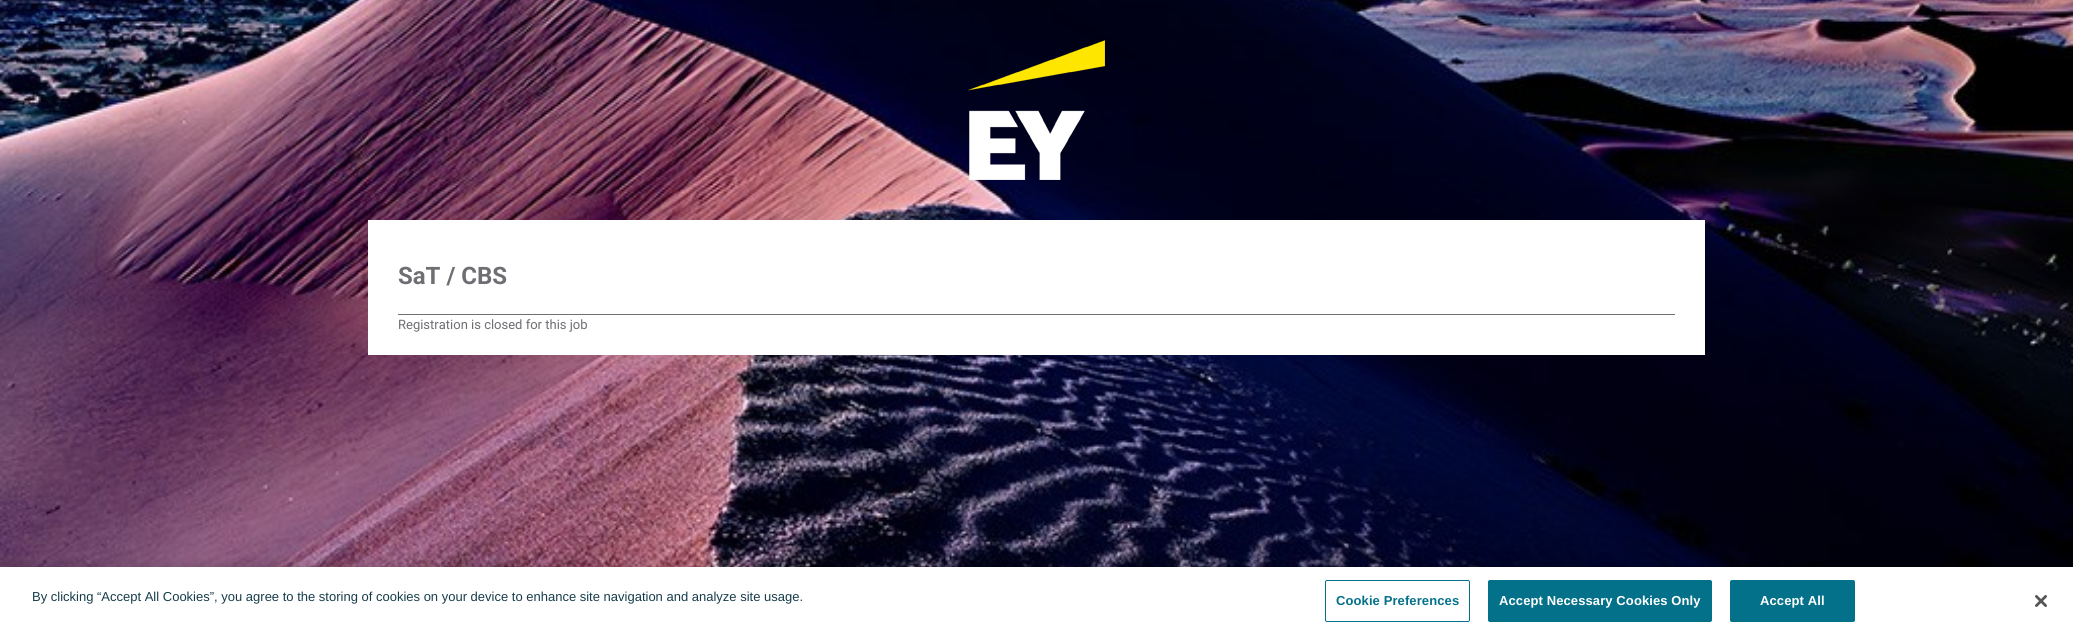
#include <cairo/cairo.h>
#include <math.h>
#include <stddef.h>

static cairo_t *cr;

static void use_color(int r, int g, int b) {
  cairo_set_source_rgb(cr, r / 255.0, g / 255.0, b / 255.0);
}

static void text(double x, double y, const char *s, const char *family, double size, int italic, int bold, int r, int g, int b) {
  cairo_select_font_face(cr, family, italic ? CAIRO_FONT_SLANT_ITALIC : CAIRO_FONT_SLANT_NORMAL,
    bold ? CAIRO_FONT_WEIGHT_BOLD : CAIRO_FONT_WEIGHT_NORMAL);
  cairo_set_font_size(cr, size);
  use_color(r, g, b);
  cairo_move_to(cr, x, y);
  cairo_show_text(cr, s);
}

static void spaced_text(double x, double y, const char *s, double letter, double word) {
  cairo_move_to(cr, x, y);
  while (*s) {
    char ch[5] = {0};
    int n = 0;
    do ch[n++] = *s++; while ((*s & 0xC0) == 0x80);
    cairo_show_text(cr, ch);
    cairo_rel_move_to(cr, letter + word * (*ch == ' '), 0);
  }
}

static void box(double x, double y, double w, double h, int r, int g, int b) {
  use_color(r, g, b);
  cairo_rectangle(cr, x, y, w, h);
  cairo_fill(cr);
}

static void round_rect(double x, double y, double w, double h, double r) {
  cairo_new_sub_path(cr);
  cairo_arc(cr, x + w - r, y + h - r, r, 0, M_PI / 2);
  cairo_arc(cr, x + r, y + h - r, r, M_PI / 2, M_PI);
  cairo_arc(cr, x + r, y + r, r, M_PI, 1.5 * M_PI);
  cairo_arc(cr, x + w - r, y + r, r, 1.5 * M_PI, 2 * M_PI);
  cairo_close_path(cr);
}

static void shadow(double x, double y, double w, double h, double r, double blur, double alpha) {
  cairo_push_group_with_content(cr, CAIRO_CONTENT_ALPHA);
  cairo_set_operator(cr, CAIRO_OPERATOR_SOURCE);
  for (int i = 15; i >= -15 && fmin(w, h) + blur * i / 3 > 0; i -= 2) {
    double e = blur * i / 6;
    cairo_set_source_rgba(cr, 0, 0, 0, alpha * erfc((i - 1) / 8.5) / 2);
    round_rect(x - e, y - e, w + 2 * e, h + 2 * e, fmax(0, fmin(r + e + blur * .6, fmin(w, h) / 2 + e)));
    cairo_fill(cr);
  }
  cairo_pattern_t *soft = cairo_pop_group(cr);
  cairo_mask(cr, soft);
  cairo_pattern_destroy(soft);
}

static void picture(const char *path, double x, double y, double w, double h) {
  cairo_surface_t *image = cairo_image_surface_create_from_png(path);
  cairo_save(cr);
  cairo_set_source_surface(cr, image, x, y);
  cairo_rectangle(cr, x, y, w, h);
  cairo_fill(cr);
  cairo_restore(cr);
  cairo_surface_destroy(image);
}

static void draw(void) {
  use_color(255, 255, 255);
  cairo_paint(cr);
  picture("img_01.png", 0, 0, 2073, 567);
  picture("img_02.png", 968, 40, 137, 140);
  box(368, 220, 1337, 135, 255, 255, 255);
  box(398, 314, 1277, 1, 110, 110, 115);
  use_color(0, 0, 0);
  shadow(0, 567, 2073, 71, 0, 9, 0.2);
  box(0, 567, 2073, 71, 255, 255, 255);
  round_rect(1325.5, 580.5, 144, 41, 1.5);
  use_color(4, 113, 138);
  cairo_set_line_width(cr, 1);
  cairo_stroke(cr);
  round_rect(1488.5, 580.5, 223, 41, 1.5);
  cairo_fill_preserve(cr);
  cairo_stroke(cr);
  round_rect(1730.5, 580.5, 124, 41, 1.5);
  cairo_fill_preserve(cr);
  cairo_stroke(cr);
  picture("img_03.png", 2035, 595, 12, 12);
  text(398, 284, "SaT / CBS", "Roboto", 24, 0, 1, 110, 110, 115);
  text(398, 329, "Registration is closed for this job", "Roboto", 13, 0, 0, 110, 110, 115);
  text(32, 601, "By clicking “Accept All Cookies”, you agree to the storing of cookies on your device to enhance site navigation and analyze site usage.", "Liberation Sans", 13, 0, 0, 22, 60, 74);
  cairo_select_font_face(cr, "Liberation Sans", CAIRO_FONT_SLANT_NORMAL, CAIRO_FONT_WEIGHT_BOLD);
  use_color(4, 113, 138);
  spaced_text(1336, 605, "Cookie Preferences", 0.1, 0);
  use_color(255, 255, 255);
  spaced_text(1499, 605, "Accept Necessary Cookies Only", 0.1, 0);
  spaced_text(1760, 605, "Accept All", 0.1, 0);
}

int main(void) {
  cairo_surface_t *surface = cairo_image_surface_create(CAIRO_FORMAT_RGB24, 2073, 638);
  cr = cairo_create(surface);
  cairo_font_options_t *options = cairo_font_options_create();
  cairo_font_options_set_hint_metrics(options, CAIRO_HINT_METRICS_OFF);
  cairo_font_options_set_hint_style(options, CAIRO_HINT_STYLE_NONE);
  cairo_set_font_options(cr, options);
  cairo_set_miter_limit(cr, 4);
  draw();
  cairo_surface_write_to_png(surface, "out.png");
  cairo_font_options_destroy(options);
  cairo_destroy(cr);
  cairo_surface_destroy(surface);
  return 0;
}
